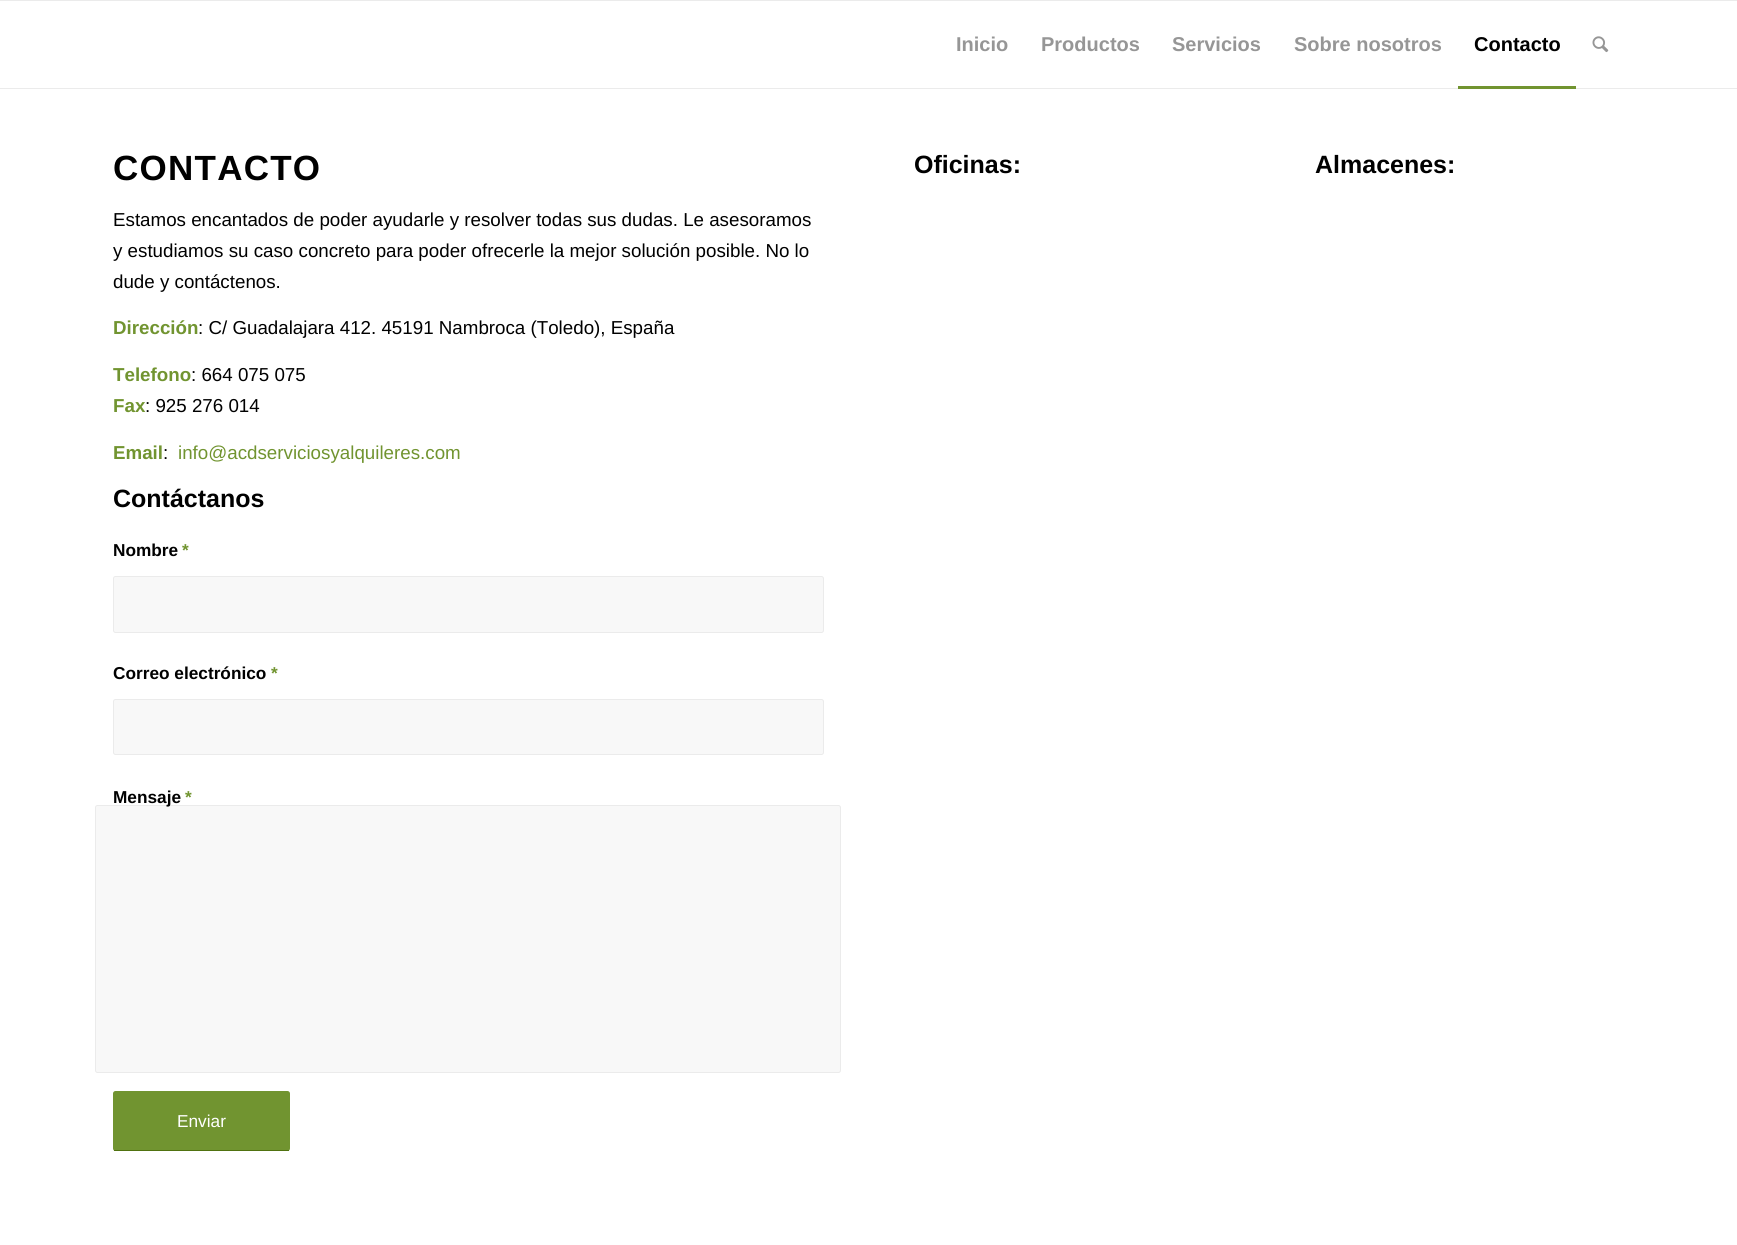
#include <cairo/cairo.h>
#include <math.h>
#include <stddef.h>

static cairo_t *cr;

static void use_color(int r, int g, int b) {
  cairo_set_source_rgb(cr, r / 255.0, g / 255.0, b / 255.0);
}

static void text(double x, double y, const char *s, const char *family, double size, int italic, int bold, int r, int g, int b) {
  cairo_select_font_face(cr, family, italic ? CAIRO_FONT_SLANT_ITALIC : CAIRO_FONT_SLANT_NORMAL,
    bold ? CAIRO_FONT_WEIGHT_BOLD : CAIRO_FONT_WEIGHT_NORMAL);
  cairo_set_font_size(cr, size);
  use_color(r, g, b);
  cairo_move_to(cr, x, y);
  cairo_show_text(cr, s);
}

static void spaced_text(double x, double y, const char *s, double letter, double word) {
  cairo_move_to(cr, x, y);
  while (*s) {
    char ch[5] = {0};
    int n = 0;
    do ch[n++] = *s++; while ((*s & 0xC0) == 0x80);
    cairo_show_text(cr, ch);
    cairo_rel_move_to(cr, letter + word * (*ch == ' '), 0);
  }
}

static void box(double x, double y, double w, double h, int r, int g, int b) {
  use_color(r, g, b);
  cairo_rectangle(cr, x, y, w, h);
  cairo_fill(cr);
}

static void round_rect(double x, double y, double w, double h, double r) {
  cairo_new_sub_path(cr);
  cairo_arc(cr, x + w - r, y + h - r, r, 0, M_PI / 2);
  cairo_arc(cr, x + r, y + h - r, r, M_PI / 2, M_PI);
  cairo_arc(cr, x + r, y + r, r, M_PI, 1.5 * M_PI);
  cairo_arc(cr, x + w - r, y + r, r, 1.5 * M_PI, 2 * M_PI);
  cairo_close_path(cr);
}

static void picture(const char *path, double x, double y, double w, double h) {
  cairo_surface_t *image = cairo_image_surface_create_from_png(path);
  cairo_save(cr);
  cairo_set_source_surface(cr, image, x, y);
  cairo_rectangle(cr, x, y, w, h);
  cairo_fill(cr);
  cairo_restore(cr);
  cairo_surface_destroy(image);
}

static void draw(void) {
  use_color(255, 255, 255);
  cairo_paint(cr);
  box(0, 0, 1737, 1, 235, 235, 235);
  box(0, 88, 1737, 1, 235, 235, 235);
  box(1458, 86, 118, 3, 113, 148, 48);
  picture("img_01.png", 1592, 36, 17, 17);
  use_color(248, 248, 248);
  round_rect(113.5, 576.5, 710, 56, 2);
  cairo_fill_preserve(cr);
  use_color(235, 235, 235);
  cairo_set_line_width(cr, 1);
  cairo_stroke(cr);
  use_color(248, 248, 248);
  round_rect(113.5, 699.5, 710, 55, 2);
  cairo_fill_preserve(cr);
  use_color(235, 235, 235);
  cairo_stroke(cr);
  use_color(248, 248, 248);
  round_rect(95.5, 805.5, 745, 267, 2);
  cairo_fill_preserve(cr);
  use_color(235, 235, 235);
  cairo_stroke(cr);
  use_color(113, 148, 48);
  round_rect(113, 1091, 177, 60, 2.5);
  cairo_fill(cr);
  box(114, 1150, 175, 1, 80, 114, 16);
  text(956, 51, "Inicio", "Liberation Sans", 20, 0, 1, 150, 150, 150);
  text(1041, 51, "Productos", "Liberation Sans", 20, 0, 1, 150, 150, 150);
  text(1172, 51, "Servicios", "Liberation Sans", 20, 0, 1, 150, 150, 150);
  text(1294, 51, "Sobre nosotros", "Liberation Sans", 20, 0, 1, 150, 150, 150);
  text(1474, 51, "Contacto", "Liberation Sans", 20, 0, 1, 0, 0, 0);
  cairo_set_font_size(cr, 35);
  spaced_text(113, 180, "CONTACTO", 1.25, 0);
  text(113, 226, "Estamos encantados de poder ayudarle y resolver todas sus dudas. Le asesoramos", "Liberation Sans", 18.75, 0, 0, 0, 0, 0);
  text(113, 257, "y estudiamos su caso concreto para poder ofrecerle la mejor solución posible. No lo", "Liberation Sans", 18.75, 0, 0, 0, 0, 0);
  text(113, 288, "dude y contáctenos.", "Liberation Sans", 18.75, 0, 0, 0, 0, 0);
  text(113, 334, "Dirección", "Liberation Sans", 18.75, 0, 1, 113, 148, 48);
  text(198, 334, ": C/ Guadalajara 412. 45191 Nambroca (Toledo), España", "Liberation Sans", 18.75, 0, 0, 0, 0, 0);
  text(113, 381, "Telefono", "Liberation Sans", 18.75, 0, 1, 113, 148, 48);
  text(191, 381, ": 664 075 075", "Liberation Sans", 18.75, 0, 0, 0, 0, 0);
  text(113, 412, "Fax", "Liberation Sans", 18.75, 0, 1, 113, 148, 48);
  text(145, 412, ": 925 276 014", "Liberation Sans", 18.75, 0, 0, 0, 0, 0);
  text(113, 459, "Email", "Liberation Sans", 18.75, 0, 1, 113, 148, 48);
  text(163, 459, ":", "Liberation Sans", 18.75, 0, 0, 0, 0, 0);
  text(178, 459, "info@acdserviciosyalquileres.com", "Liberation Sans", 18.75, 0, 0, 113, 148, 48);
  text(113, 507, "Contáctanos", "Liberation Sans", 25, 0, 1, 0, 0, 0);
  text(113, 556, "Nombre", "Liberation Sans", 17.25, 0, 1, 0, 0, 0);
  text(182, 556, "*", "Liberation Sans", 17.25, 0, 1, 113, 148, 48);
  text(113, 679, "Correo electrónico", "Liberation Sans", 17.25, 0, 1, 0, 0, 0);
  text(271, 679, "*", "Liberation Sans", 17.25, 0, 1, 113, 148, 48);
  text(113, 803, "Mensaje", "Liberation Sans", 17.25, 0, 1, 0, 0, 0);
  text(185, 803, "*", "Liberation Sans", 17.25, 0, 1, 113, 148, 48);
  text(177, 1127, "Enviar", "Liberation Sans", 17.25, 0, 0, 255, 255, 255);
  text(914, 173, "Oficinas:", "Liberation Sans", 25, 0, 1, 0, 0, 0);
  text(1315, 173, "Almacenes:", "Liberation Sans", 25, 0, 1, 0, 0, 0);
}

int main(void) {
  cairo_surface_t *surface = cairo_image_surface_create(CAIRO_FORMAT_RGB24, 1737, 1245);
  cr = cairo_create(surface);
  cairo_font_options_t *options = cairo_font_options_create();
  cairo_font_options_set_hint_metrics(options, CAIRO_HINT_METRICS_OFF);
  cairo_font_options_set_hint_style(options, CAIRO_HINT_STYLE_NONE);
  cairo_set_font_options(cr, options);
  cairo_set_miter_limit(cr, 4);
  draw();
  cairo_surface_write_to_png(surface, "out.png");
  cairo_font_options_destroy(options);
  cairo_destroy(cr);
  cairo_surface_destroy(surface);
  return 0;
}
